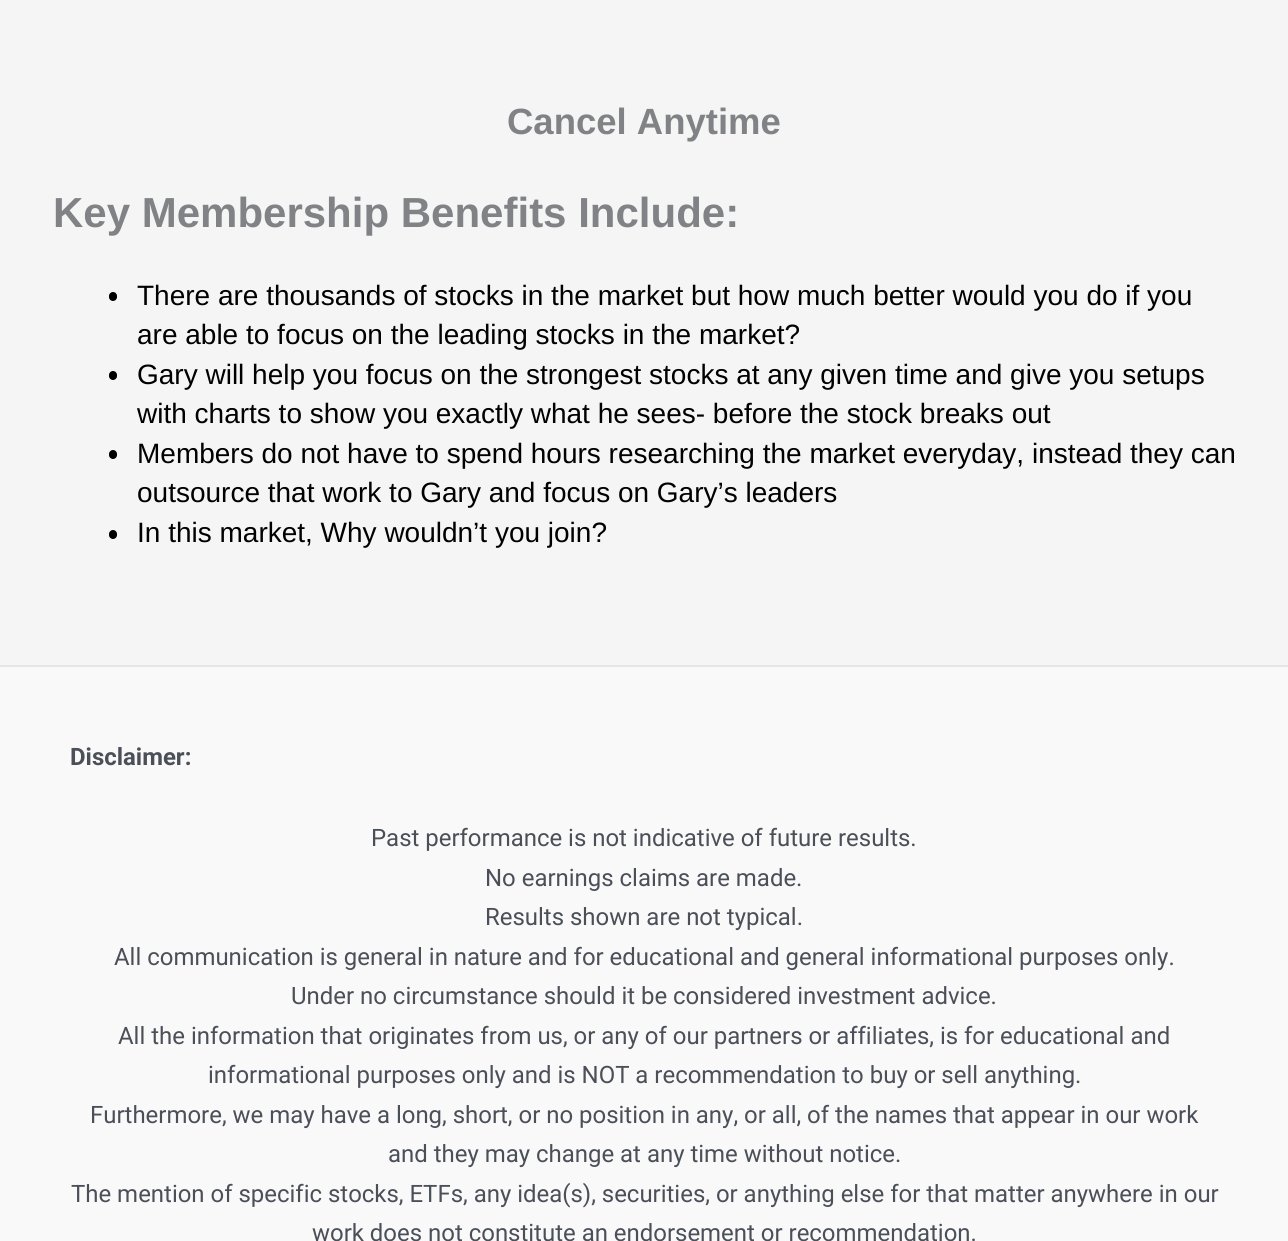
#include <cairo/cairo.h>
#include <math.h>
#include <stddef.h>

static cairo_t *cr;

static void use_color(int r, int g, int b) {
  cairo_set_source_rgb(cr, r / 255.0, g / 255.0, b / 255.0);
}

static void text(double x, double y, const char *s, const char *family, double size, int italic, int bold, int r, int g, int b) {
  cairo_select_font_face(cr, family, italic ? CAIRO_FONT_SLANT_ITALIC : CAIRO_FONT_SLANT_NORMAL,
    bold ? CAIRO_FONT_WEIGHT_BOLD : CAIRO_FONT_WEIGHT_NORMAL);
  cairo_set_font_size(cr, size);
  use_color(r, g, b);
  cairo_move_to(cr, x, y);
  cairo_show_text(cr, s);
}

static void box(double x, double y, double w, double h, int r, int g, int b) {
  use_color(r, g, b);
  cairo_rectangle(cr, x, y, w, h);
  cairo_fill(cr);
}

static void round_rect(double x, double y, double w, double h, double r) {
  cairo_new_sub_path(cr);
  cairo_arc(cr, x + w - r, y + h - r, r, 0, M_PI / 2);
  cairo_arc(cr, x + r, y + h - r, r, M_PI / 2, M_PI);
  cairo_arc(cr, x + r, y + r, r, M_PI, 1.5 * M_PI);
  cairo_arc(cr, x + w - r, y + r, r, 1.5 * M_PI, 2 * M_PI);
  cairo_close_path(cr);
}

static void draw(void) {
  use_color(245, 245, 245);
  cairo_paint(cr);
  use_color(0, 0, 0);
  round_rect(109, 292, 8, 9, 4);
  cairo_fill(cr);
  round_rect(109, 371, 8, 9, 4);
  cairo_fill(cr);
  round_rect(109, 450, 8, 9, 4);
  cairo_fill(cr);
  round_rect(109, 530, 8, 9, 4);
  cairo_fill(cr);
  box(0, 667, 1288, 574, 249, 249, 249);
  box(0, 665, 1288, 2, 229, 229, 229);
  text(507, 134, "Cancel Anytime", "Liberation Sans", 36.5, 0, 1, 128, 130, 133);
  text(53, 227, "Key Membership Benefits Include:", "Liberation Sans", 42, 0, 1, 128, 130, 133);
  text(137, 305, "There are thousands of stocks in the market but how much better would you do if you", "Liberation Sans", 28, 0, 0, 0, 0, 0);
  text(137, 344, "are able to focus on the leading stocks in the market?", "Liberation Sans", 28, 0, 0, 0, 0, 0);
  text(137, 384, "Gary will help you focus on the strongest stocks at any given time and give you setups", "Liberation Sans", 28, 0, 0, 0, 0, 0);
  text(137, 423, "with charts to show you exactly what he sees- before the stock breaks out", "Liberation Sans", 28, 0, 0, 0, 0, 0);
  text(137, 463, "Members do not have to spend hours researching the market everyday, instead they can", "Liberation Sans", 28, 0, 0, 0, 0, 0);
  text(137, 502, "outsource that work to Gary and focus on Gary’s leaders", "Liberation Sans", 28, 0, 0, 0, 0, 0);
  text(137, 542, "In this market, Why wouldn’t you join?", "Liberation Sans", 28, 0, 0, 0, 0, 0);
  text(70, 765, "Disclaimer:", "Roboto", 23.95, 0, 1, 75, 79, 88);
  text(371, 846, "Past performance is not indicative of future results.", "Roboto", 23.95, 0, 0, 75, 79, 88);
  text(485, 886, "No earnings claims are made.", "Roboto", 23.95, 0, 0, 75, 79, 88);
  text(485, 925, "Results shown are not typical.", "Roboto", 23.95, 0, 0, 75, 79, 88);
  text(114, 965, "All communication is general in nature and for educational and general informational purposes only.", "Roboto", 23.95, 0, 0, 75, 79, 88);
  text(291, 1004, "Under no circumstance should it be considered investment advice.", "Roboto", 23.95, 0, 0, 75, 79, 88);
  text(118, 1044, "All the information that originates from us, or any of our partners or affiliates, is for educational and", "Roboto", 23.95, 0, 0, 75, 79, 88);
  text(208, 1083, "informational purposes only and is NOT a recommendation to buy or sell anything.", "Roboto", 23.95, 0, 0, 75, 79, 88);
  text(90, 1123, "Furthermore, we may have a long, short, or no position in any, or all, of the names that appear in our work", "Roboto", 23.95, 0, 0, 75, 79, 88);
  text(388, 1162, "and they may change at any time without notice.", "Roboto", 23.95, 0, 0, 75, 79, 88);
  text(71, 1202, "The mention of specific stocks, ETFs, any idea(s), securities, or anything else for that matter anywhere in our", "Roboto", 23.95, 0, 0, 75, 79, 88);
  text(312, 1241, "work does not constitute an endorsement or recommendation.", "Roboto", 23.95, 0, 0, 75, 79, 88);
}

int main(void) {
  cairo_surface_t *surface = cairo_image_surface_create(CAIRO_FORMAT_RGB24, 1288, 1241);
  cr = cairo_create(surface);
  cairo_font_options_t *options = cairo_font_options_create();
  cairo_font_options_set_hint_metrics(options, CAIRO_HINT_METRICS_OFF);
  cairo_font_options_set_hint_style(options, CAIRO_HINT_STYLE_NONE);
  cairo_set_font_options(cr, options);
  cairo_set_miter_limit(cr, 4);
  draw();
  cairo_surface_write_to_png(surface, "out.png");
  cairo_font_options_destroy(options);
  cairo_destroy(cr);
  cairo_surface_destroy(surface);
  return 0;
}
